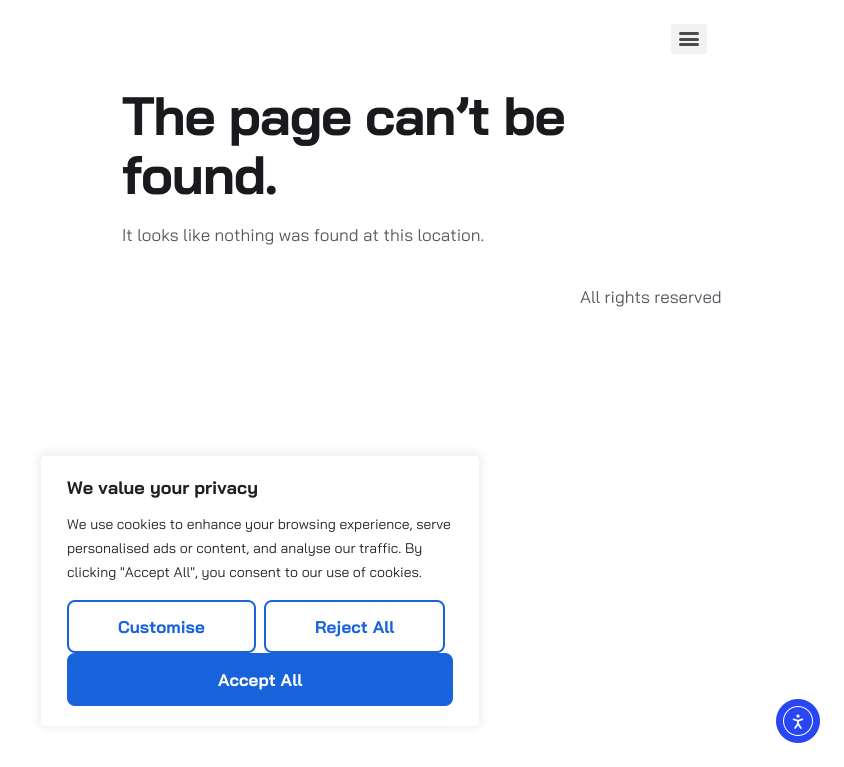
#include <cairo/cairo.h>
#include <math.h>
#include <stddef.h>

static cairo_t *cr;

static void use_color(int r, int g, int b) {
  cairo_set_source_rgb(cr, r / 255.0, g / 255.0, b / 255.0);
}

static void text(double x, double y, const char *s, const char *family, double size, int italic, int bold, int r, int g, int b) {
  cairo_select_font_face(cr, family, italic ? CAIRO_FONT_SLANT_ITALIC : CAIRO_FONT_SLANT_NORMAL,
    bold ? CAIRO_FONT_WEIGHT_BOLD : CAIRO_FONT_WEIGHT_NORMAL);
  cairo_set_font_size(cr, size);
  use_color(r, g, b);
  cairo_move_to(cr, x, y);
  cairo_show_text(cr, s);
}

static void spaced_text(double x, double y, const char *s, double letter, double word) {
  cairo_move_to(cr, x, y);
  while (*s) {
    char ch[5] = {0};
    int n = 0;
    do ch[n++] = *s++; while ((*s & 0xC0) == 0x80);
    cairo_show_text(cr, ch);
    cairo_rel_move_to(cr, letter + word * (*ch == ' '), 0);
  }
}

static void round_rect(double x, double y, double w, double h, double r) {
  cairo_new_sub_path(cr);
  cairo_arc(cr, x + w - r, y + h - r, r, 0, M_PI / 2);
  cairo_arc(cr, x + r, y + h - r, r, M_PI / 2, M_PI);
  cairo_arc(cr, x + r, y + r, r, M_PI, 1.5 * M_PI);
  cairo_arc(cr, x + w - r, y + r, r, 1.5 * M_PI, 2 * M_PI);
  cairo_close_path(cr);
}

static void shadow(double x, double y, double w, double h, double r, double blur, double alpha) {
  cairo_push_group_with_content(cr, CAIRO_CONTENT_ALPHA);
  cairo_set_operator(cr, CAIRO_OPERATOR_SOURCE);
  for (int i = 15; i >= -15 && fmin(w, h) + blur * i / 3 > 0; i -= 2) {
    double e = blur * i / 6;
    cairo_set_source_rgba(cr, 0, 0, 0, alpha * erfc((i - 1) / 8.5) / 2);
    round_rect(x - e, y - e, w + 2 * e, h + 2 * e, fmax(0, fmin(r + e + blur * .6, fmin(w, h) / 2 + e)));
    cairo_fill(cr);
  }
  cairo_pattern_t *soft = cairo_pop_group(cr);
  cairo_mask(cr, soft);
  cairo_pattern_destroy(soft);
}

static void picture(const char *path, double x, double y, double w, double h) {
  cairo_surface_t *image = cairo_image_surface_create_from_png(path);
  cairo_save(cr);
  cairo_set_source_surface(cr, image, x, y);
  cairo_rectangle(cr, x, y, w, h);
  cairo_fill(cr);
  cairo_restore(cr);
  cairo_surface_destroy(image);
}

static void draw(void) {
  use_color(255, 255, 255);
  cairo_paint(cr);
  use_color(242, 242, 242);
  round_rect(671, 24, 36, 30, 3);
  cairo_fill(cr);
  use_color(73, 76, 79);
  round_rect(679, 38, 20, 3, 1.5);
  cairo_fill(cr);
  round_rect(679, 32, 20, 3, 1.5);
  cairo_fill(cr);
  round_rect(679, 43, 20, 3, 1.5);
  cairo_fill(cr);
  use_color(172, 171, 171);
  shadow(40, 454, 440, 272, 6, 5, 0.3);
  use_color(255, 255, 255);
  round_rect(40.5, 455.5, 439, 271, 5.5);
  cairo_fill_preserve(cr);
  use_color(244, 244, 244);
  cairo_set_line_width(cr, 1);
  cairo_stroke(cr);
  round_rect(68, 601, 187, 51, 7);
  use_color(24, 99, 220);
  cairo_set_line_width(cr, 2);
  cairo_stroke(cr);
  round_rect(265, 601, 179, 51, 7);
  cairo_stroke(cr);
  round_rect(68, 654, 384, 51, 7);
  cairo_fill_preserve(cr);
  cairo_stroke(cr);
  use_color(40, 71, 243);
  cairo_arc(cr, 798, 721, 22, 0, 2 * M_PI);
  cairo_fill(cr);
  cairo_arc(cr, 798, 721, 14.5, 0, 2 * M_PI);
  use_color(255, 255, 255);
  cairo_set_line_width(cr, 1);
  cairo_stroke(cr);
  picture("img_01.png", 792, 714, 12, 15);
  cairo_select_font_face(cr, "Bai Jamjuree", CAIRO_FONT_SLANT_NORMAL, CAIRO_FONT_WEIGHT_BOLD);
  cairo_set_font_size(cr, 54);
  use_color(26, 25, 29);
  spaced_text(122, 135, "The page can’t be", -1.4, 0);
  spaced_text(122, 194, "found.", -1.4, 0);
  text(122, 241, "It looks like nothing was found at this location.", "Bai Jamjuree", 17, 0, 0, 84, 88, 95);
  text(580, 303, "All rights reserved", "Bai Jamjuree", 17, 0, 0, 84, 88, 95);
  text(67, 494, "We value your privacy", "Bai Jamjuree", 18, 0, 1, 33, 33, 33);
  text(67, 529, "We use cookies to enhance your browsing experience, serve", "Bai Jamjuree", 14, 0, 0, 33, 33, 33);
  text(67, 553, "personalised ads or content, and analyse our traffic. By", "Bai Jamjuree", 14, 0, 0, 33, 33, 33);
  text(67, 577, "clicking \"Accept All\", you consent to our use of cookies.", "Bai Jamjuree", 14, 0, 0, 33, 33, 33);
  text(118, 633, "Customise", "Bai Jamjuree", 17, 0, 1, 24, 99, 220);
  text(315, 633, "Reject All", "Bai Jamjuree", 17, 0, 1, 24, 99, 220);
  text(218, 686, "Accept All", "Bai Jamjuree", 17, 0, 1, 255, 255, 255);
}

int main(void) {
  cairo_surface_t *surface = cairo_image_surface_create(CAIRO_FORMAT_RGB24, 844, 767);
  cr = cairo_create(surface);
  cairo_font_options_t *options = cairo_font_options_create();
  cairo_font_options_set_hint_metrics(options, CAIRO_HINT_METRICS_OFF);
  cairo_font_options_set_hint_style(options, CAIRO_HINT_STYLE_NONE);
  cairo_set_font_options(cr, options);
  cairo_set_miter_limit(cr, 4);
  draw();
  cairo_surface_write_to_png(surface, "out.png");
  cairo_font_options_destroy(options);
  cairo_destroy(cr);
  cairo_surface_destroy(surface);
  return 0;
}
